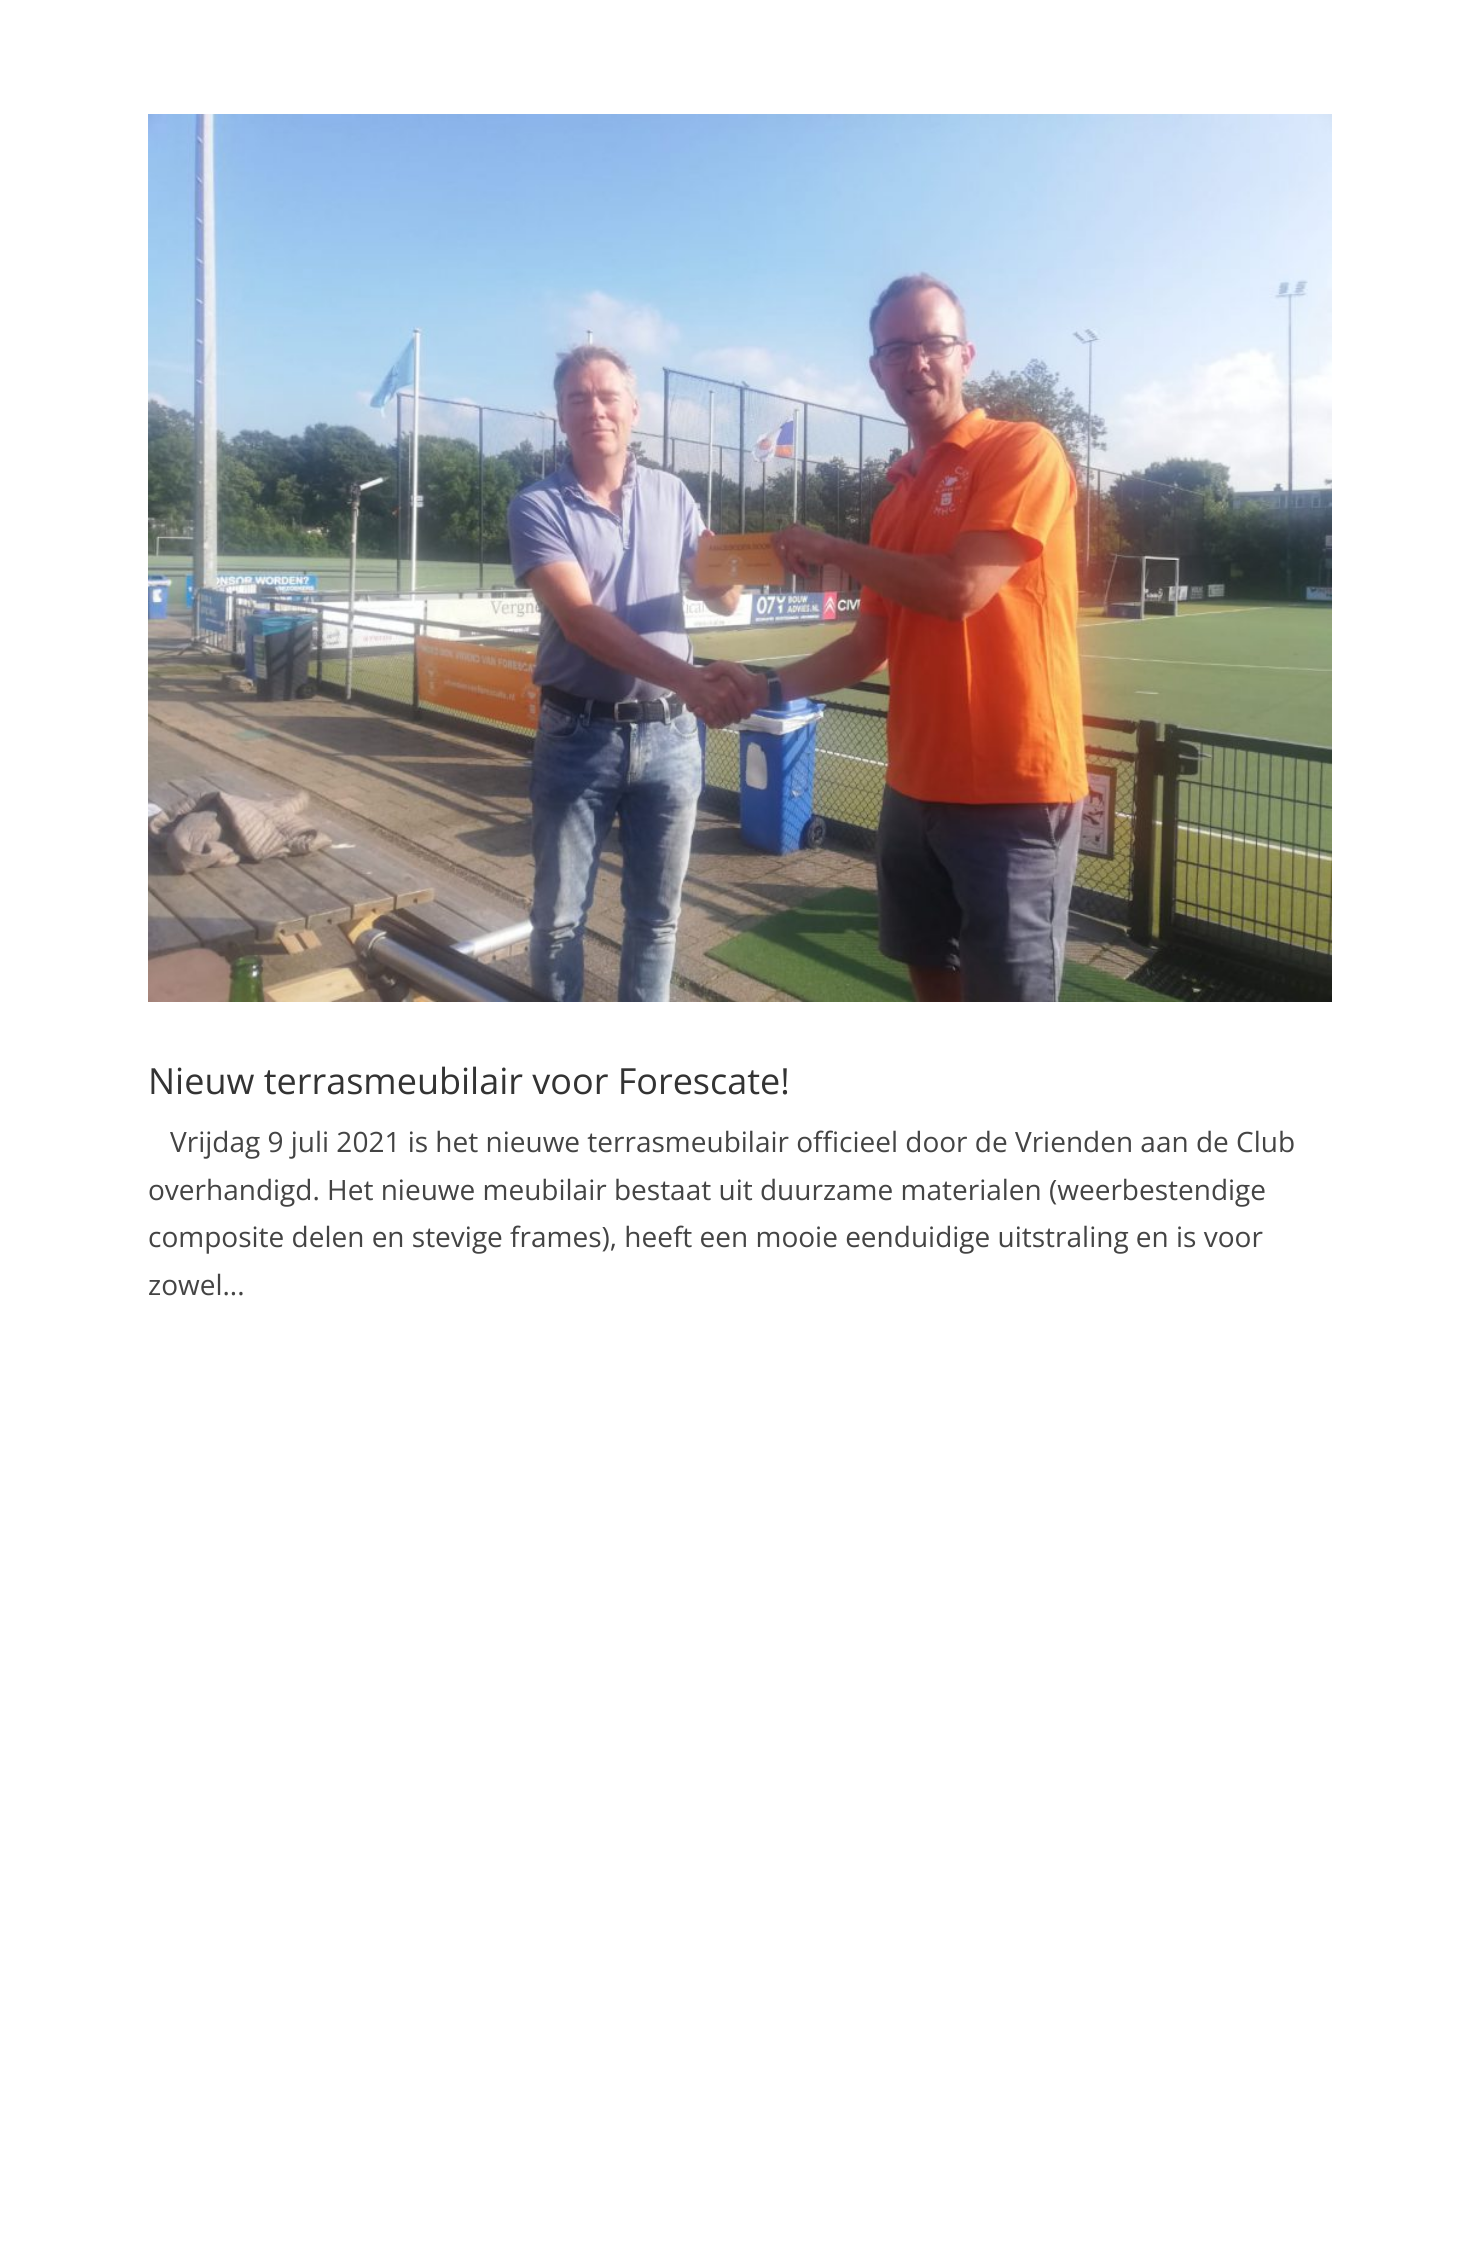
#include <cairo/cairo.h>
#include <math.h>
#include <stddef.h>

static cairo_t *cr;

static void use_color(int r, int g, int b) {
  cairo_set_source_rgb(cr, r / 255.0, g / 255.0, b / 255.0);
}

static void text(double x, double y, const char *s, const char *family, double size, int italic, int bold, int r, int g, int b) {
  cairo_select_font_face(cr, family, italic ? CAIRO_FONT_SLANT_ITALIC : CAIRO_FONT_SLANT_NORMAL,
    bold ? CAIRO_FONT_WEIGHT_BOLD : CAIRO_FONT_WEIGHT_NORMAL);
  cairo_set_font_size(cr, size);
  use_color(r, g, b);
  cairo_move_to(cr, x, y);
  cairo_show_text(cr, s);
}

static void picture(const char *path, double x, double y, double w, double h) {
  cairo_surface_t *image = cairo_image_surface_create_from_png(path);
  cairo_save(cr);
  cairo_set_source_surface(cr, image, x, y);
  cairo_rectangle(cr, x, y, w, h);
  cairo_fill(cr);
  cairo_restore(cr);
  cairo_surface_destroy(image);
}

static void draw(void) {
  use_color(255, 255, 255);
  cairo_paint(cr);
  picture("img_01.png", 148, 114, 1184, 888);
  text(148, 1094, "Nieuw terrasmeubilair voor Forescate!", "Open Sans", 36, 0, 0, 51, 51, 51);
  text(170, 1152, "Vrijdag 9 juli 2021 is het nieuwe terrasmeubilair officieel door de Vrienden aan de Club", "Open Sans", 28, 0, 0, 68, 68, 68);
  text(148, 1200, "overhandigd. Het nieuwe meubilair bestaat uit duurzame materialen (weerbestendige", "Open Sans", 28, 0, 0, 68, 68, 68);
  text(148, 1247, "composite delen en stevige frames), heeft een mooie eenduidige uitstraling en is voor", "Open Sans", 28, 0, 0, 68, 68, 68);
  text(148, 1295, "zowel...", "Open Sans", 28, 0, 0, 68, 68, 68);
}

int main(void) {
  cairo_surface_t *surface = cairo_image_surface_create(CAIRO_FORMAT_RGB24, 1480, 2243);
  cr = cairo_create(surface);
  cairo_font_options_t *options = cairo_font_options_create();
  cairo_font_options_set_hint_metrics(options, CAIRO_HINT_METRICS_OFF);
  cairo_font_options_set_hint_style(options, CAIRO_HINT_STYLE_NONE);
  cairo_set_font_options(cr, options);
  cairo_set_miter_limit(cr, 4);
  draw();
  cairo_surface_write_to_png(surface, "out.png");
  cairo_font_options_destroy(options);
  cairo_destroy(cr);
  cairo_surface_destroy(surface);
  return 0;
}
